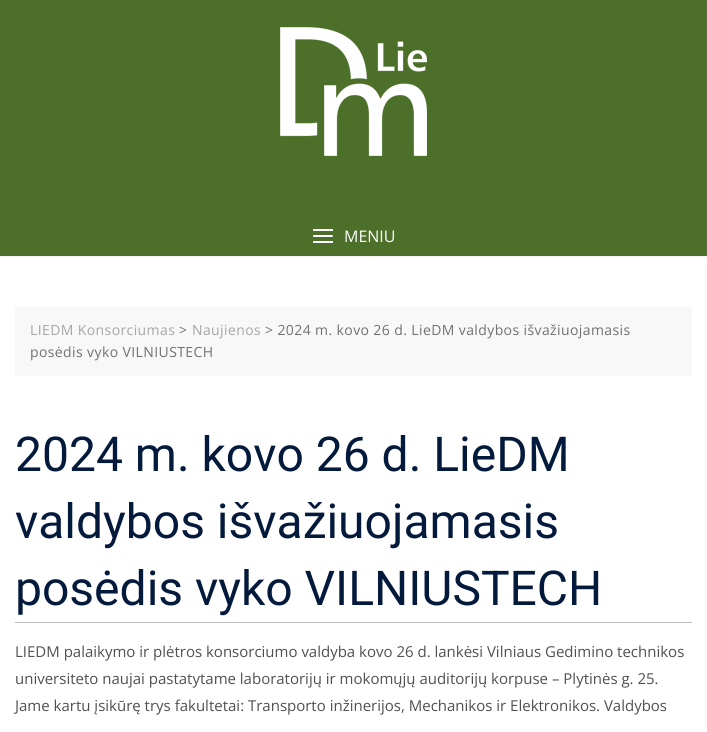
#include <cairo/cairo.h>
#include <math.h>
#include <stddef.h>

static cairo_t *cr;

static void use_color(int r, int g, int b) {
  cairo_set_source_rgb(cr, r / 255.0, g / 255.0, b / 255.0);
}

static void text(double x, double y, const char *s, const char *family, double size, int italic, int bold, int r, int g, int b) {
  cairo_select_font_face(cr, family, italic ? CAIRO_FONT_SLANT_ITALIC : CAIRO_FONT_SLANT_NORMAL,
    bold ? CAIRO_FONT_WEIGHT_BOLD : CAIRO_FONT_WEIGHT_NORMAL);
  cairo_set_font_size(cr, size);
  use_color(r, g, b);
  cairo_move_to(cr, x, y);
  cairo_show_text(cr, s);
}

static void spaced_text(double x, double y, const char *s, double letter, double word) {
  cairo_move_to(cr, x, y);
  while (*s) {
    char ch[5] = {0};
    int n = 0;
    do ch[n++] = *s++; while ((*s & 0xC0) == 0x80);
    cairo_show_text(cr, ch);
    cairo_rel_move_to(cr, letter + word * (*ch == ' '), 0);
  }
}

static void box(double x, double y, double w, double h, int r, int g, int b) {
  use_color(r, g, b);
  cairo_rectangle(cr, x, y, w, h);
  cairo_fill(cr);
}

static void round_rect(double x, double y, double w, double h, double r) {
  cairo_new_sub_path(cr);
  cairo_arc(cr, x + w - r, y + h - r, r, 0, M_PI / 2);
  cairo_arc(cr, x + r, y + h - r, r, M_PI / 2, M_PI);
  cairo_arc(cr, x + r, y + r, r, M_PI, 1.5 * M_PI);
  cairo_arc(cr, x + w - r, y + r, r, 1.5 * M_PI, 2 * M_PI);
  cairo_close_path(cr);
}

static void picture(const char *path, double x, double y, double w, double h) {
  cairo_surface_t *image = cairo_image_surface_create_from_png(path);
  cairo_save(cr);
  cairo_set_source_surface(cr, image, x, y);
  cairo_rectangle(cr, x, y, w, h);
  cairo_fill(cr);
  cairo_restore(cr);
  cairo_surface_destroy(image);
}

static void draw(void) {
  use_color(255, 255, 255);
  cairo_paint(cr);
  box(0, 0, 707, 7, 76, 112, 41);
  box(0, 7, 707, 249, 76, 112, 41);
  picture("img_01.png", 280, 27, 147, 129);
  use_color(255, 255, 255);
  round_rect(313, 235, 20, 2, 1);
  cairo_fill(cr);
  box(313, 229, 20, 2, 255, 255, 255);
  box(313, 241, 20, 2, 255, 255, 255);
  box(0, 256, 707, 1, 242, 242, 242);
  box(15, 307, 677, 69, 248, 248, 248);
  box(15, 622, 677, 1, 187, 187, 187);
  text(344, 242, "MENIU", "Open Sans", 16, 0, 0, 255, 255, 255);
  cairo_set_font_size(cr, 14);
  use_color(166, 166, 166);
  spaced_text(30, 335, "LIEDM Konsorciumas", 0.4, 0);
  use_color(113, 113, 113);
  spaced_text(179, 335, ">", 0.4, 0);
  use_color(166, 166, 166);
  spaced_text(192, 335, "Naujienos", 0.4, 0);
  use_color(113, 113, 113);
  spaced_text(265, 335, "> 2024 m. kovo 26 d. LieDM valdybos išvažiuojamasis", 0.4, 0);
  spaced_text(30, 357, "posėdis vyko VILNIUSTECH", 0.4, 0);
  text(15, 471, "2024 m. kovo 26 d. LieDM", "Roboto", 48, 0, 0, 3, 26, 61);
  text(15, 538, "valdybos išvažiuojamasis", "Roboto", 48, 0, 0, 3, 26, 61);
  text(15, 605, "posėdis vyko VILNIUSTECH", "Roboto", 48, 0, 0, 3, 26, 61);
  text(15, 657, "LIEDM palaikymo ir plėtros konsorciumo valdyba kovo 26 d. lankėsi Vilniaus Gedimino technikos", "Open Sans", 15, 0, 0, 80, 80, 80);
  text(15, 684, "universiteto naujai pastatytame laboratorijų ir mokomųjų auditorijų korpuse – Plytinės g. 25.", "Open Sans", 15, 0, 0, 80, 80, 80);
  text(15, 711, "Jame kartu įsikūrę trys fakultetai: Transporto inžinerijos, Mechanikos ir Elektronikos. Valdybos", "Open Sans", 15, 0, 0, 80, 80, 80);
}

int main(void) {
  cairo_surface_t *surface = cairo_image_surface_create(CAIRO_FORMAT_RGB24, 707, 732);
  cr = cairo_create(surface);
  cairo_font_options_t *options = cairo_font_options_create();
  cairo_font_options_set_hint_metrics(options, CAIRO_HINT_METRICS_OFF);
  cairo_font_options_set_hint_style(options, CAIRO_HINT_STYLE_NONE);
  cairo_set_font_options(cr, options);
  cairo_set_miter_limit(cr, 4);
  draw();
  cairo_surface_write_to_png(surface, "out.png");
  cairo_font_options_destroy(options);
  cairo_destroy(cr);
  cairo_surface_destroy(surface);
  return 0;
}
